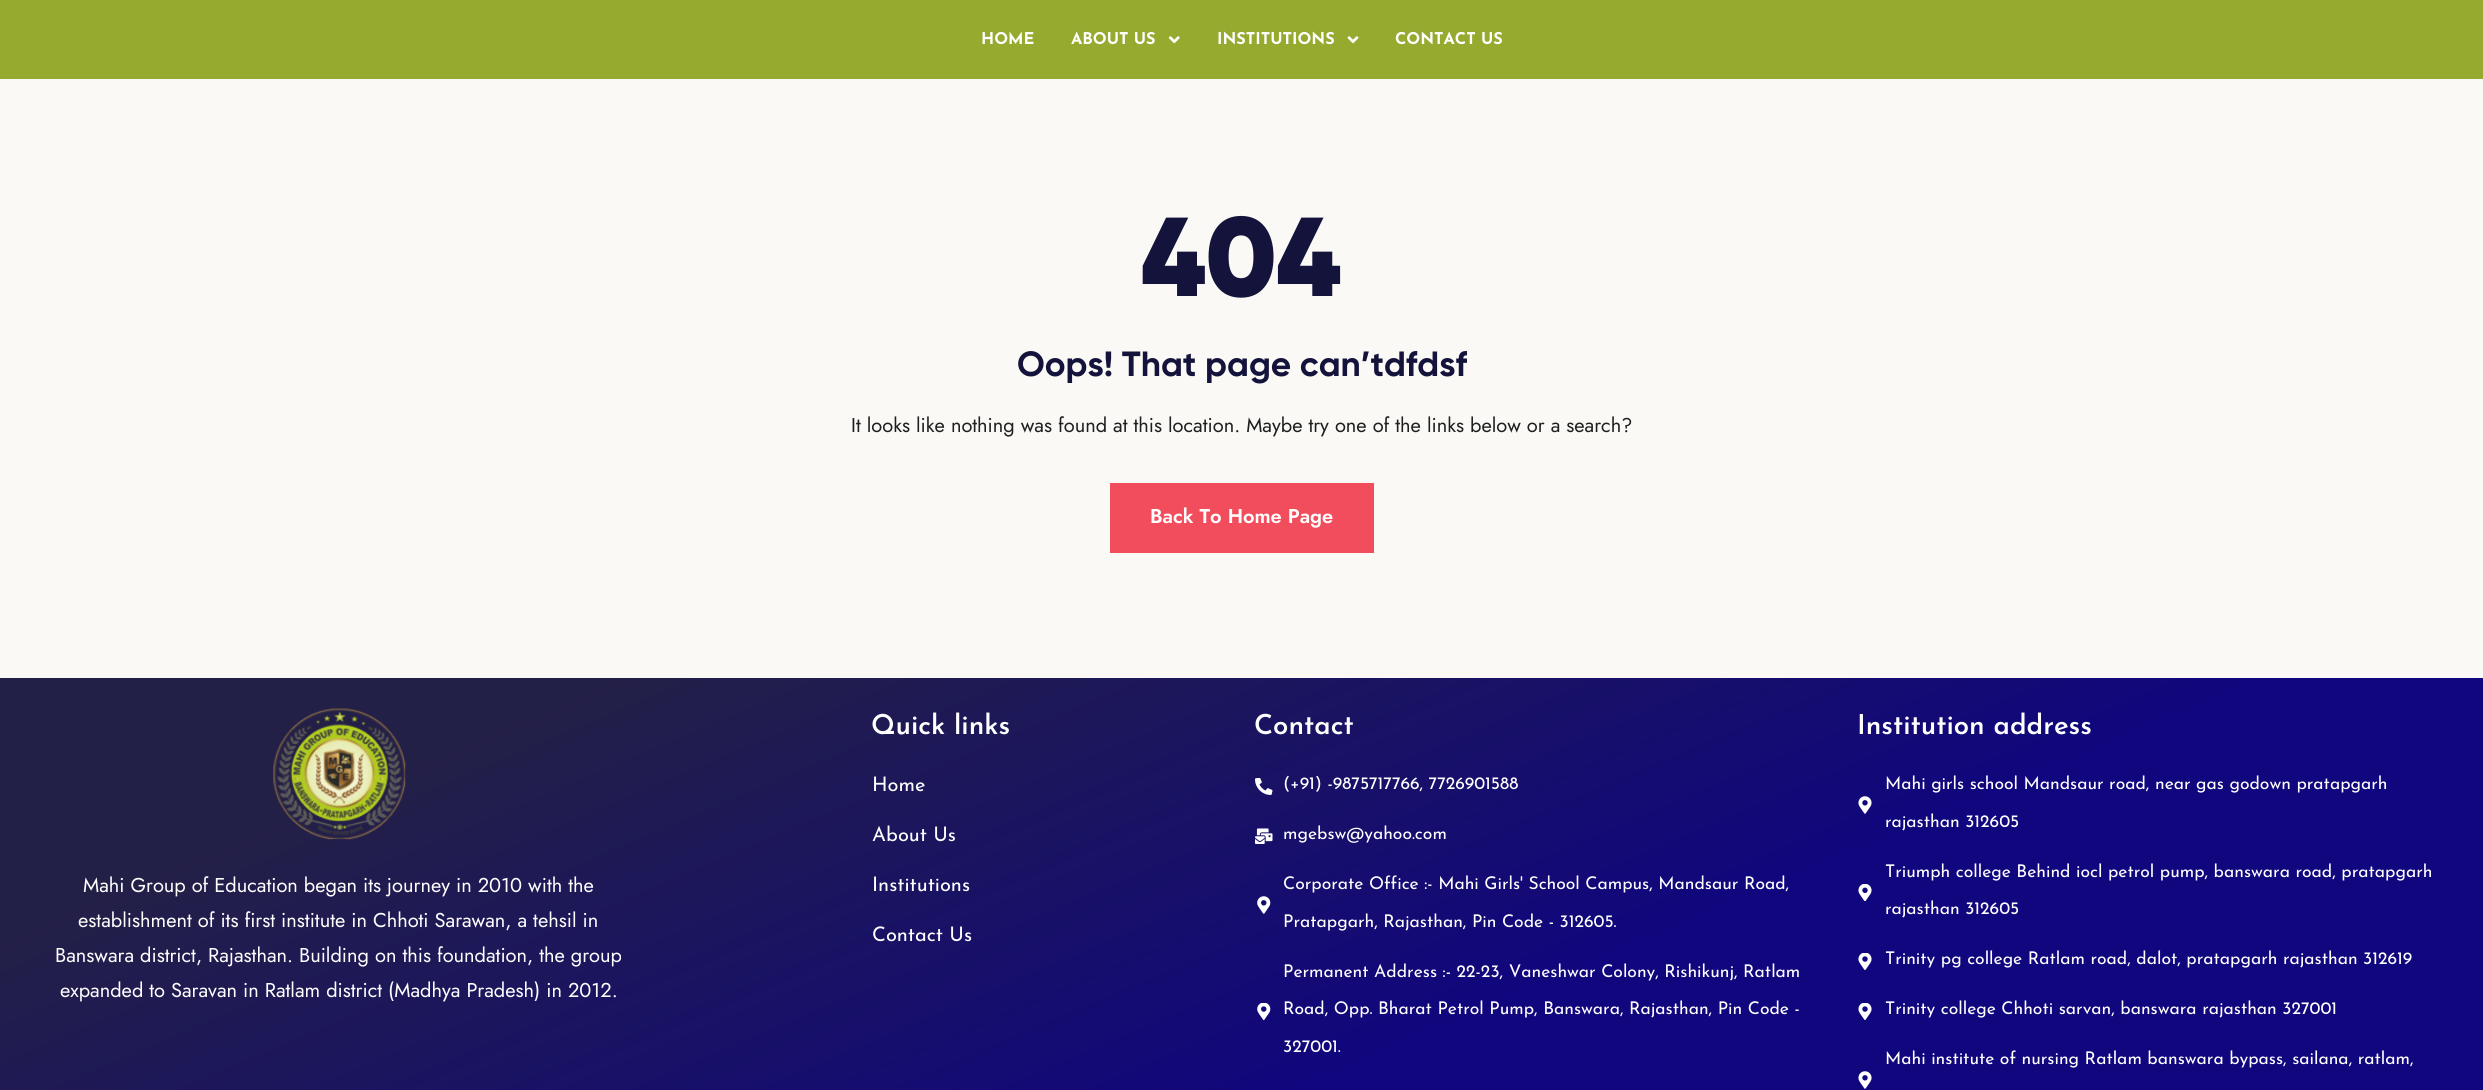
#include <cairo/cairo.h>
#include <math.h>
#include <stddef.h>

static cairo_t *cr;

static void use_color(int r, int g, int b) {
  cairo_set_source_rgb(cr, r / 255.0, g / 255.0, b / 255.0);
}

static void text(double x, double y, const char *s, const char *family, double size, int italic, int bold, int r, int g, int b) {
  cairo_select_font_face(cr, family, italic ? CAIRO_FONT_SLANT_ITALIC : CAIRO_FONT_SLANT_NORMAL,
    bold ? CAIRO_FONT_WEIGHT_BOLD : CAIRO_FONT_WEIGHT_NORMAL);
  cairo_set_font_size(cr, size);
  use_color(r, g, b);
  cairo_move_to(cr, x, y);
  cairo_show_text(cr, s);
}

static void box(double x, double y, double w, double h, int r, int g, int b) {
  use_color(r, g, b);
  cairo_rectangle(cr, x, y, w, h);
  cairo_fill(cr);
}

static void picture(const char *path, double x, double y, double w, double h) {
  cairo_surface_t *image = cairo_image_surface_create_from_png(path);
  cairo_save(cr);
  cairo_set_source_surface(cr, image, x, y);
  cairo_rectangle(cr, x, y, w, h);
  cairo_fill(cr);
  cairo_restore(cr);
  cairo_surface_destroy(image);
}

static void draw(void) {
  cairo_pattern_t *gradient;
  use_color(250, 249, 246);
  cairo_paint(cr);
  box(0, 0, 2483, 79, 149, 170, 46);
  picture("img_01.png", 1168, 36, 12, 8);
  picture("img_02.png", 1347, 36, 12, 8);
  box(1110, 483, 264, 70, 241, 77, 93);
  gradient = cairo_pattern_create_linear(953, 273, 1531, 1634);
  cairo_pattern_add_color_stop_rgba(gradient, 0.16, 0.137, 0.125, 0.278, 1);
  cairo_pattern_add_color_stop_rgba(gradient, 0.6, 0.063, 0.024, 0.494, 1);
  cairo_set_source(cr, gradient);
  cairo_pattern_destroy(gradient);
  cairo_rectangle(cr, 0, 678, 2483, 412);
  cairo_fill(cr);
  picture("img_03.png", 273, 708, 133, 132);
  picture("img_04.png", 1255, 778, 18, 17);
  picture("img_05.png", 1255, 828, 18, 16);
  picture("img_06.png", 1257, 896, 14, 18);
  picture("img_07.png", 1257, 1003, 14, 17);
  picture("img_08.png", 1858, 796, 14, 18);
  picture("img_09.png", 1858, 884, 14, 17);
  picture("img_10.png", 1858, 953, 14, 17);
  picture("img_10.png", 1858, 1003, 14, 17);
  picture("img_11.png", 1858, 1071, 14, 18);
  text(981, 44, "HOME", "Josefin Sans", 16.25, 0, 1, 255, 255, 255);
  text(1071, 44, "ABOUT US", "Josefin Sans", 16.25, 0, 1, 255, 255, 255);
  text(1217, 44, "INSTITUTIONS", "Josefin Sans", 16.25, 0, 1, 255, 255, 255);
  text(1395, 44, "CONTACT US", "Josefin Sans", 16.25, 0, 1, 255, 255, 255);
  text(1141, 296, "404", "Gilroy Black", 112, 0, 0, 20, 19, 59);
  text(1017, 376, "Oops! That page can’tdfdsf", "Gilroy", 35, 0, 1, 20, 19, 59);
  text(851, 432, "It looks like nothing was found at this location. Maybe try one of the links below or a search?", "Jost", 20, 0, 0, 30, 31, 31);
  text(1150, 523, "Back To Home Page", "Jost SemiBold", 20, 0, 0, 255, 255, 255);
  text(83, 892, "Mahi Group of Education began its journey in 2010 with the", "Jost", 20, 0, 0, 255, 255, 255);
  text(78, 927, "establishment of its first institute in Chhoti Sarawan, a tehsil in", "Jost", 20, 0, 0, 255, 255, 255);
  text(55, 962, "Banswara district, Rajasthan. Building on this foundation, the group", "Jost", 20, 0, 0, 255, 255, 255);
  text(60, 997, "expanded to Saravan in Ratlam district (Madhya Pradesh) in 2012.", "Jost", 20, 0, 0, 255, 255, 255);
  text(871, 734, "Quick links", "Josefin Sans SemiBold", 27.5, 0, 0, 255, 255, 255);
  text(872, 791, "Home", "Josefin Sans", 20, 0, 0, 255, 255, 255);
  text(872, 841, "About Us", "Josefin Sans", 20, 0, 0, 255, 255, 255);
  text(872, 891, "Institutions", "Josefin Sans", 20, 0, 0, 255, 255, 255);
  text(872, 941, "Contact Us", "Josefin Sans", 20, 0, 0, 255, 255, 255);
  text(1254, 734, "Contact", "Josefin Sans SemiBold", 27.5, 0, 0, 255, 255, 255);
  text(1283, 789, "(+91) -9875717766, 7726901588", "Josefin Sans", 17.5, 0, 0, 255, 255, 255);
  text(1283, 839, "mgebsw@yahoo.com", "Josefin Sans", 17.5, 0, 0, 255, 255, 255);
  text(1283, 889, "Corporate Office :- Mahi Girls' School Campus, Mandsaur Road,", "Josefin Sans", 17.5, 0, 0, 255, 255, 255);
  text(1283, 927, "Pratapgarh, Rajasthan, Pin Code - 312605.", "Josefin Sans", 17.5, 0, 0, 255, 255, 255);
  text(1283, 977, "Permanent Address :- 22-23, Vaneshwar Colony, Rishikunj, Ratlam", "Josefin Sans", 17.5, 0, 0, 255, 255, 255);
  text(1283, 1014, "Road, Opp. Bharat Petrol Pump, Banswara, Rajasthan, Pin Code -", "Josefin Sans", 17.5, 0, 0, 255, 255, 255);
  text(1283, 1052, "327001.", "Josefin Sans", 17.5, 0, 0, 255, 255, 255);
  text(1857, 734, "Institution address", "Josefin Sans SemiBold", 27.5, 0, 0, 255, 255, 255);
  text(1885, 789, "Mahi girls school Mandsaur road, near gas godown pratapgarh", "Josefin Sans", 17.5, 0, 0, 255, 255, 255);
  text(1885, 827, "rajasthan 312605", "Josefin Sans", 17.5, 0, 0, 255, 255, 255);
  text(1885, 877, "Triumph college Behind iocl petrol pump, banswara road, pratapgarh", "Josefin Sans", 17.5, 0, 0, 255, 255, 255);
  text(1885, 914, "rajasthan 312605", "Josefin Sans", 17.5, 0, 0, 255, 255, 255);
  text(1885, 964, "Trinity pg college Ratlam road, dalot, pratapgarh rajasthan 312619", "Josefin Sans", 17.5, 0, 0, 255, 255, 255);
  text(1885, 1014, "Trinity college Chhoti sarvan, banswara rajasthan 327001", "Josefin Sans", 17.5, 0, 0, 255, 255, 255);
  text(1885, 1064, "Mahi institute of nursing Ratlam banswara bypass, sailana, ratlam,", "Josefin Sans", 17.5, 0, 0, 255, 255, 255);
}

int main(void) {
  cairo_surface_t *surface = cairo_image_surface_create(CAIRO_FORMAT_RGB24, 2483, 1090);
  cr = cairo_create(surface);
  cairo_font_options_t *options = cairo_font_options_create();
  cairo_font_options_set_hint_metrics(options, CAIRO_HINT_METRICS_OFF);
  cairo_font_options_set_hint_style(options, CAIRO_HINT_STYLE_NONE);
  cairo_set_font_options(cr, options);
  cairo_set_miter_limit(cr, 4);
  draw();
  cairo_surface_write_to_png(surface, "out.png");
  cairo_font_options_destroy(options);
  cairo_destroy(cr);
  cairo_surface_destroy(surface);
  return 0;
}
